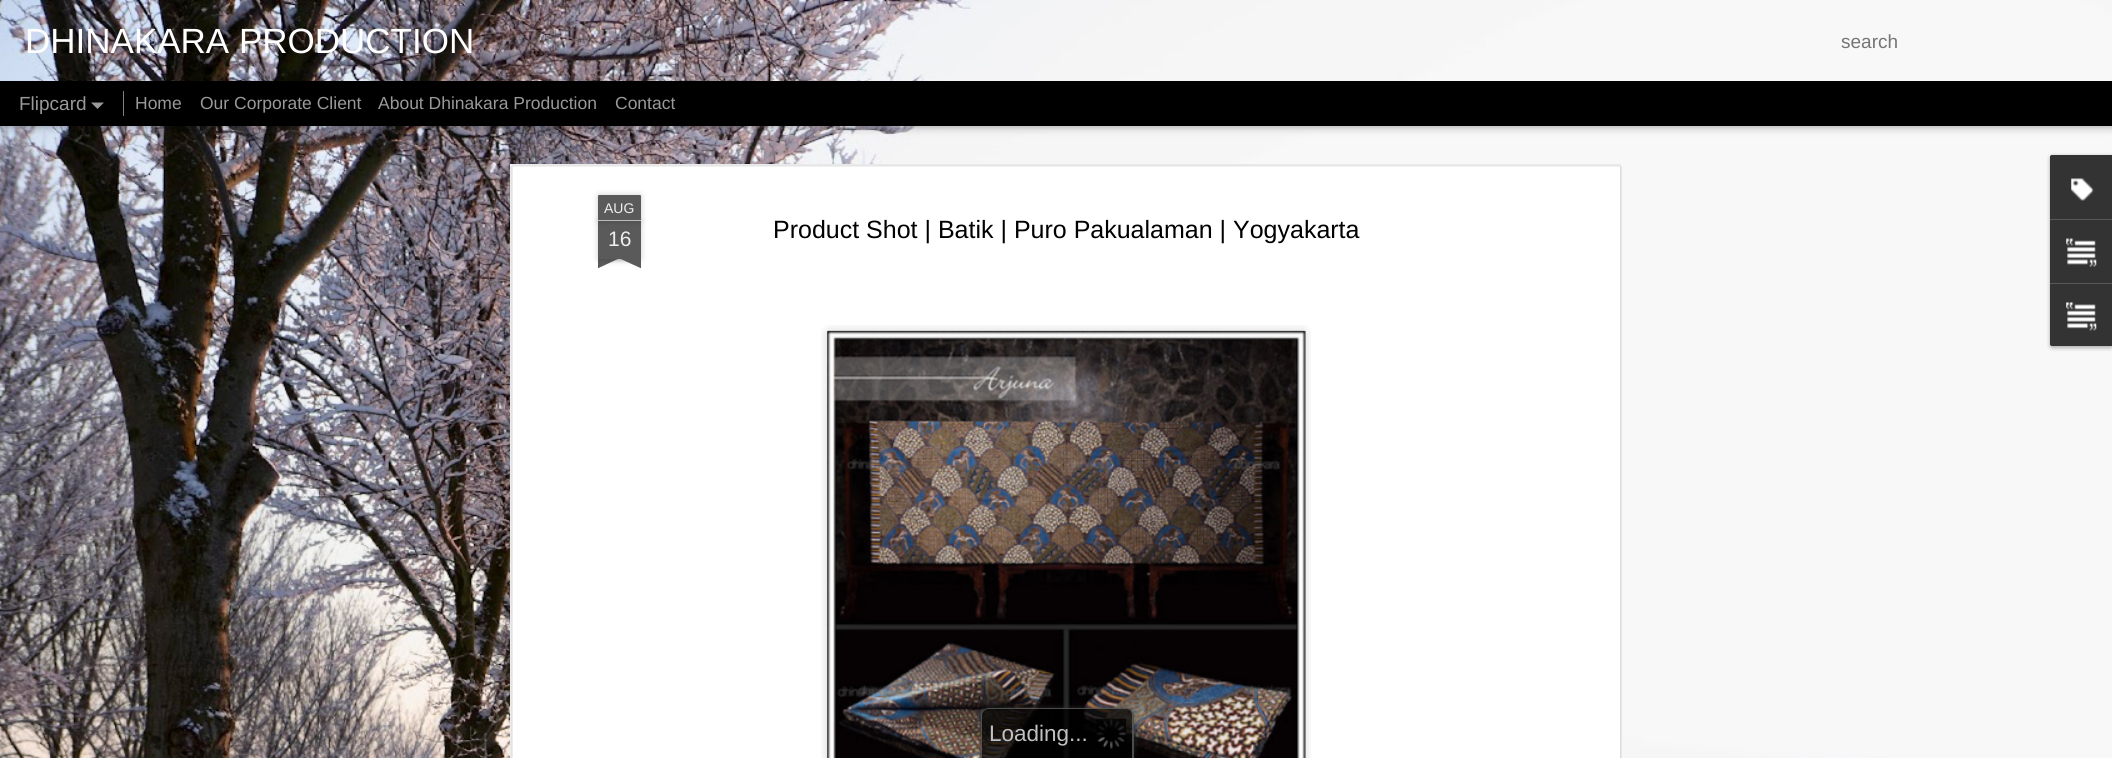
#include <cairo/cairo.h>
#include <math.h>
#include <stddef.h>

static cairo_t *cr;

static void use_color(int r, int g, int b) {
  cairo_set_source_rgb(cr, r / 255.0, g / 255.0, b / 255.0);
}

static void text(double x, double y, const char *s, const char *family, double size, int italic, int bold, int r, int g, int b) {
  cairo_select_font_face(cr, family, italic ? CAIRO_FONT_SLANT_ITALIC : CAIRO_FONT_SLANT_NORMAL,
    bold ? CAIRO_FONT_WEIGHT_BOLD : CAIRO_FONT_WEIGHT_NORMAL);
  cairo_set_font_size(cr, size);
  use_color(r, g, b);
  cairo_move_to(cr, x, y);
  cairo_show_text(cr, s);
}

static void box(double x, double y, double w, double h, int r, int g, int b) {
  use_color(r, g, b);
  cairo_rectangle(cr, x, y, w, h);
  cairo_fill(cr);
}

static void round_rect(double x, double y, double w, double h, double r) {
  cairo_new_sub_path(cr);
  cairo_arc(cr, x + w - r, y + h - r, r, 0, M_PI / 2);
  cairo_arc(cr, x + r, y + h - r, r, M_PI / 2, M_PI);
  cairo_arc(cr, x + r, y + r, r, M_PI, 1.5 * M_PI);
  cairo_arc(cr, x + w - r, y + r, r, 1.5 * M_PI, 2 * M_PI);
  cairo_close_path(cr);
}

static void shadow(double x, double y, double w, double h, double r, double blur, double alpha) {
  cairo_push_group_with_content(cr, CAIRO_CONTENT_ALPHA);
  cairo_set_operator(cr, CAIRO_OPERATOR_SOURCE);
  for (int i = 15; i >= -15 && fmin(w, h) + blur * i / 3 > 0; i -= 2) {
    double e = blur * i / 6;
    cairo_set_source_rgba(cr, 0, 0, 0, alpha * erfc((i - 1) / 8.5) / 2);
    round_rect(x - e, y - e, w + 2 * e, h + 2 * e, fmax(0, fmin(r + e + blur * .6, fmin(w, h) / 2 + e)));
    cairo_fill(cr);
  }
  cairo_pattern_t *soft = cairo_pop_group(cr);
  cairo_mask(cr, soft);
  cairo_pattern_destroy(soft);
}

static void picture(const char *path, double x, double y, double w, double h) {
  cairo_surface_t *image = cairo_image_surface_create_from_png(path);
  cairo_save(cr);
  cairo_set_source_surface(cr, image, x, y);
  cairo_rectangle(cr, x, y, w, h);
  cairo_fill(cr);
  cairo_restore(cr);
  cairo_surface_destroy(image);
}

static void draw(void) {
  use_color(0, 0, 0);
  cairo_paint(cr);
  picture("img_02.png", 0, 126, 2112, 632);
  shadow(0, 81, 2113, 44, 0, 5, 0.5);
  picture("img_01.png", 0, 0, 2112, 81);
  use_color(153, 153, 153);
  cairo_new_path(cr);
  cairo_move_to(cr, 91, 102.5);
  cairo_line_to(cr, 104, 102.5);
  cairo_line_to(cr, 97.5, 109);
  cairo_close_path(cr);
  cairo_fill(cr);
  box(123, 91, 1, 25, 128, 128, 128);
  box(510, 164, 1113, 594, 255, 255, 255);
  picture("img_03.png", 510, 164, 1113, 594);
  use_color(0, 0, 0);
  shadow(598, 221, 43, 38, 0, 3, 0.2);
  box(598, 221, 43, 38, 90, 90, 90);
  use_color(0, 0, 0);
  shadow(598, 195, 43, 26, 1, 3, 0.2);
  use_color(90, 90, 90);
  cairo_new_path(cr);
  cairo_move_to(cr, 599, 195);
  cairo_line_to(cr, 640, 195);
  cairo_curve_to(cr, 640.5, 195, 641, 195.5, 641, 196);
  cairo_line_to(cr, 641, 221);
  cairo_line_to(cr, 598, 221);
  cairo_line_to(cr, 598, 196);
  cairo_curve_to(cr, 598, 195.5, 598.5, 195, 599, 195);
  cairo_close_path(cr);
  cairo_fill(cr);
  box(598, 220, 43, 1, 189, 189, 189);
  cairo_save(cr);
  cairo_rectangle(cr, 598, 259, 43, 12);
  cairo_clip(cr);
  use_color(0, 0, 0);
  shadow(586, 246, 63, 13, 0, 3, 0.2);
  cairo_restore(cr);
  cairo_save(cr);
  cairo_rectangle(cr, 598, 259, 43, 12);
  cairo_clip(cr);
  use_color(90, 90, 90);
  cairo_new_path(cr);
  cairo_move_to(cr, 587, 260);
  cairo_line_to(cr, 643, 234);
  cairo_line_to(cr, 648, 245);
  cairo_line_to(cr, 592, 271);
  cairo_close_path(cr);
  cairo_fill(cr);
  cairo_restore(cr);
  cairo_save(cr);
  cairo_rectangle(cr, 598, 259, 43, 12);
  cairo_clip(cr);
  use_color(0, 0, 0);
  shadow(590, 246, 63, 13, 0, 3, 0.2);
  cairo_restore(cr);
  cairo_save(cr);
  cairo_rectangle(cr, 598, 259, 43, 12);
  cairo_clip(cr);
  use_color(90, 90, 90);
  cairo_new_path(cr);
  cairo_move_to(cr, 596, 234);
  cairo_line_to(cr, 652, 260);
  cairo_line_to(cr, 647, 271);
  cairo_line_to(cr, 590, 245);
  cairo_close_path(cr);
  cairo_fill(cr);
  cairo_restore(cr);
  picture("img_04.png", 821, 325, 490, 433);
  picture("img_05.png", 827, 330, 479, 428);
  use_color(0, 0, 0);
  shadow(2050, 156, 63, 192, 2.5, 2, 0.3);
  use_color(51, 51, 51);
  cairo_new_path(cr);
  cairo_move_to(cr, 2052.5, 155);
  cairo_line_to(cr, 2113, 155);
  cairo_line_to(cr, 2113, 346);
  cairo_line_to(cr, 2052.5, 346);
  cairo_curve_to(cr, 2051, 346, 2050, 345, 2050, 343.5);
  cairo_line_to(cr, 2050, 157.5);
  cairo_curve_to(cr, 2050, 156, 2051, 155, 2052.5, 155);
  cairo_close_path(cr);
  cairo_fill(cr);
  cairo_new_path(cr);
  cairo_move_to(cr, 2052.5, 155);
  cairo_line_to(cr, 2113, 155);
  cairo_line_to(cr, 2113, 219);
  cairo_line_to(cr, 2050, 219);
  cairo_line_to(cr, 2050, 157.5);
  cairo_curve_to(cr, 2050, 156, 2051, 155, 2052.5, 155);
  cairo_close_path(cr);
  cairo_fill(cr);
  picture("img_06.png", 2071, 178, 23, 23);
  box(2050, 219, 62, 1, 88, 88, 88);
  picture("img_07.png", 2066, 238, 31, 29);
  use_color(51, 51, 51);
  cairo_new_path(cr);
  cairo_move_to(cr, 2050, 283);
  cairo_line_to(cr, 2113, 283);
  cairo_line_to(cr, 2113, 346);
  cairo_line_to(cr, 2052.5, 346);
  cairo_curve_to(cr, 2051, 346, 2050, 345, 2050, 343.5);
  cairo_close_path(cr);
  cairo_fill(cr);
  box(2050, 283, 62, 1, 88, 88, 88);
  picture("img_08.png", 2066, 302, 31, 29);
  cairo_save(cr);
  cairo_set_fill_rule(cr, CAIRO_FILL_RULE_EVEN_ODD);
  cairo_new_path(cr);
  cairo_move_to(cr, 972, 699);
  cairo_line_to(cr, 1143, 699);
  cairo_line_to(cr, 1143, 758);
  cairo_line_to(cr, 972, 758);
  cairo_close_path(cr);
  cairo_move_to(cr, 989, 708);
  cairo_line_to(cr, 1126, 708);
  cairo_curve_to(cr, 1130.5, 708, 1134, 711.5, 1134, 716);
  cairo_line_to(cr, 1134, 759);
  cairo_line_to(cr, 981, 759);
  cairo_line_to(cr, 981, 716);
  cairo_curve_to(cr, 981, 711.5, 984.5, 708, 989, 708);
  cairo_close_path(cr);
  cairo_clip(cr);
  use_color(51, 51, 51);
  shadow(981, 708, 153, 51, 8, 2.5, 0.75);
  cairo_restore(cr);
  cairo_set_source_rgba(cr, 0, 0, 0, 0.75);
  cairo_new_path(cr);
  cairo_move_to(cr, 989, 708);
  cairo_line_to(cr, 1126, 708);
  cairo_curve_to(cr, 1130.5, 708, 1134, 711.5, 1134, 716);
  cairo_line_to(cr, 1134, 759);
  cairo_line_to(cr, 981, 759);
  cairo_line_to(cr, 981, 716);
  cairo_curve_to(cr, 981, 711.5, 984.5, 708, 989, 708);
  cairo_close_path(cr);
  cairo_fill(cr);
  cairo_set_source_rgba(cr, 0.4, 0.4, 0.4, 0.75);
  cairo_set_fill_rule(cr, CAIRO_FILL_RULE_EVEN_ODD);
  cairo_new_path(cr);
  cairo_move_to(cr, 989, 708);
  cairo_line_to(cr, 1126, 708);
  cairo_curve_to(cr, 1130, 708, 1134, 711, 1134, 715);
  cairo_line_to(cr, 1134, 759);
  cairo_line_to(cr, 981, 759);
  cairo_line_to(cr, 981, 715);
  cairo_curve_to(cr, 981, 711, 985, 708, 989, 708);
  cairo_close_path(cr);
  cairo_move_to(cr, 989, 709);
  cairo_line_to(cr, 1126, 709);
  cairo_curve_to(cr, 1130, 709, 1132, 712, 1132, 715);
  cairo_line_to(cr, 1132, 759);
  cairo_line_to(cr, 982, 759);
  cairo_line_to(cr, 982, 715);
  cairo_curve_to(cr, 982, 712, 985, 709, 989, 709);
  cairo_close_path(cr);
  cairo_fill(cr);
  picture("img_09.png", 1096, 718, 31, 31);
  text(25, 53, "DHINAKARA PRODUCTION", "Liberation Sans", 35, 0, 0, 255, 255, 255);
  text(1841, 48, "search", "Liberation Sans", 19, 0, 0, 117, 117, 117);
  text(19, 110, "Flipcard", "Liberation Sans", 19, 0, 0, 153, 153, 153);
  text(135, 109, "Home", "Liberation Sans", 17.5, 0, 0, 153, 153, 153);
  text(200, 109, "Our Corporate Client", "Liberation Sans", 17.5, 0, 0, 153, 153, 153);
  text(378, 109, "About Dhinakara Production", "Liberation Sans", 17.5, 0, 0, 153, 153, 153);
  text(615, 109, "Contact", "Liberation Sans", 17.5, 0, 0, 153, 153, 153);
  text(604, 213, "AUG", "Liberation Sans", 14, 0, 0, 238, 238, 238);
  text(608, 246, "16", "Liberation Sans", 21, 0, 0, 238, 238, 238);
  text(773, 238, "Product Shot | Batik | Puro Pakualaman | Yogyakarta", "Liberation Sans", 25, 0, 0, 0, 0, 0);
  text(989, 741, "Loading", "Liberation Sans", 22.5, 0, 0, 194, 193, 193);
  text(1069, 741, "...", "Liberation Sans", 22.5, 0, 0, 194, 193, 193);
}

int main(void) {
  cairo_surface_t *surface = cairo_image_surface_create(CAIRO_FORMAT_RGB24, 2112, 758);
  cr = cairo_create(surface);
  cairo_font_options_t *options = cairo_font_options_create();
  cairo_font_options_set_hint_metrics(options, CAIRO_HINT_METRICS_OFF);
  cairo_font_options_set_hint_style(options, CAIRO_HINT_STYLE_NONE);
  cairo_set_font_options(cr, options);
  cairo_set_miter_limit(cr, 4);
  draw();
  cairo_surface_write_to_png(surface, "out.png");
  cairo_font_options_destroy(options);
  cairo_destroy(cr);
  cairo_surface_destroy(surface);
  return 0;
}
